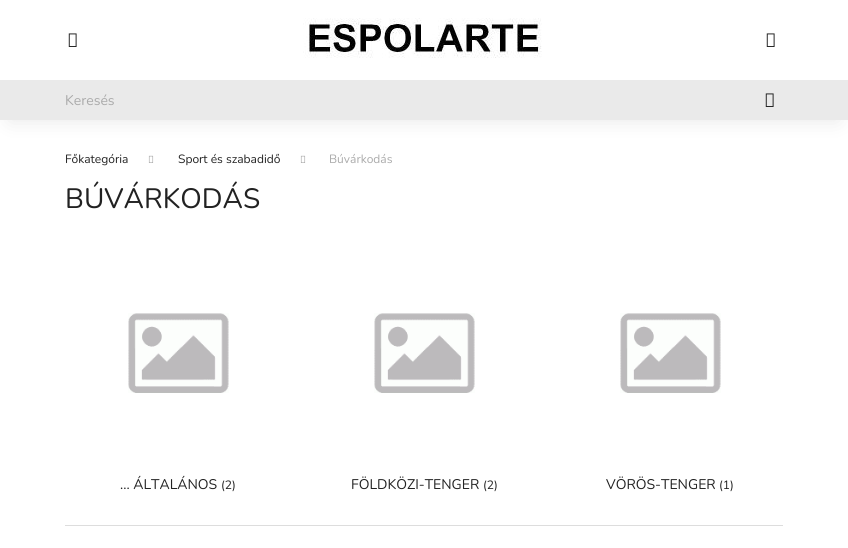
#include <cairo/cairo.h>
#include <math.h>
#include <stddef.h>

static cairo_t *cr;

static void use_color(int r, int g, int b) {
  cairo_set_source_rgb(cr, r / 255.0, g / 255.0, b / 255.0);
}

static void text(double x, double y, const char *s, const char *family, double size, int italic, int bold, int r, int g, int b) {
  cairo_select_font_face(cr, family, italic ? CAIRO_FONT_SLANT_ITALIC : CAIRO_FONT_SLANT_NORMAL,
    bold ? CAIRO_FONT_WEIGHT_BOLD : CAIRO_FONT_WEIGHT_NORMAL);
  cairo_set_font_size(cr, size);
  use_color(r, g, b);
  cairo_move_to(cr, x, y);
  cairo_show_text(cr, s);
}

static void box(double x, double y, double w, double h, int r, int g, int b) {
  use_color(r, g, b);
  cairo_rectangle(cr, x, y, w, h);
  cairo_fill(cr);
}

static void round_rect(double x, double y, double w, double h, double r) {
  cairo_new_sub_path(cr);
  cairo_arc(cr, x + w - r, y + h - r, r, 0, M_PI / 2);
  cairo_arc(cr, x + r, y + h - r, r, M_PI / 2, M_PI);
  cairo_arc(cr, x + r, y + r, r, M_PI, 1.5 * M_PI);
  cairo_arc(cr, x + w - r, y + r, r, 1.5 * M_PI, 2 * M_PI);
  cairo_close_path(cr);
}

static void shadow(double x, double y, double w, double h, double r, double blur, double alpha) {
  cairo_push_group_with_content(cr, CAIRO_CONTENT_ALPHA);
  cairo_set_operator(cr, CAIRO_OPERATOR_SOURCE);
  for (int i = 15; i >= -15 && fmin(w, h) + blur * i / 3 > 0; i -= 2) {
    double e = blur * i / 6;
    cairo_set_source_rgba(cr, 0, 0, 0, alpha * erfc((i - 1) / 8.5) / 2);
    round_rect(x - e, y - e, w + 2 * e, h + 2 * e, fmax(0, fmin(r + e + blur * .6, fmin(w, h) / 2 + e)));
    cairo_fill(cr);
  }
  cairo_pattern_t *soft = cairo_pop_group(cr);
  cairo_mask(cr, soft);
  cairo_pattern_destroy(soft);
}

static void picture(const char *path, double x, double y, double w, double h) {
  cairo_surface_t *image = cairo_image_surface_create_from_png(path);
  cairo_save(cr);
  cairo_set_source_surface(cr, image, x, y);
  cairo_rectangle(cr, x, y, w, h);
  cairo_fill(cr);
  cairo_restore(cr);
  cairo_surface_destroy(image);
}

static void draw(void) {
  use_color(255, 255, 255);
  cairo_paint(cr);
  picture("img_01.png", 68, 33, 9, 14);
  picture("img_02.png", 303, 18, 239, 40);
  picture("img_01.png", 766, 33, 9, 14);
  use_color(0, 0, 0);
  shadow(10, 100, 828, 20, 0, 10, 0.1);
  box(0, 80, 848, 40, 234, 234, 234);
  picture("img_03.png", 765, 93, 9, 14);
  picture("img_04.png", 148, 155, 6, 8);
  picture("img_04.png", 300, 155, 6, 8);
  picture("img_05.png", 128, 313, 101, 80);
  picture("img_05.png", 374, 313, 101, 80);
  picture("img_05.png", 620, 313, 101, 80);
  box(65, 525, 718, 1, 221, 221, 221);
  text(65, 105, "Keresés", "Nunito", 14, 0, 0, 170, 170, 170);
  text(65, 163, "Főkategória", "Nunito", 12, 0, 0, 34, 34, 34);
  text(178, 163, "Sport és szabadidő", "Nunito", 12, 0, 0, 34, 34, 34);
  text(329, 163, "Búvárkodás", "Nunito", 12, 0, 0, 170, 170, 170);
  text(65, 208, "BÚVÁRKODÁS", "Nunito", 28, 0, 0, 34, 34, 34);
  text(120, 489, "... ÁLTALÁNOS", "Nunito", 14, 0, 0, 34, 34, 34);
  text(221, 489, "(2)", "Nunito", 12, 0, 0, 34, 34, 34);
  text(351, 489, "FÖLDKÖZI-TENGER", "Nunito", 14, 0, 0, 34, 34, 34);
  text(483, 489, "(2)", "Nunito", 12, 0, 0, 34, 34, 34);
  text(606, 489, "VÖRÖS-TENGER", "Nunito", 14, 0, 0, 34, 34, 34);
  text(719, 489, "(1)", "Nunito", 12, 0, 0, 34, 34, 34);
}

int main(void) {
  cairo_surface_t *surface = cairo_image_surface_create(CAIRO_FORMAT_RGB24, 848, 548);
  cr = cairo_create(surface);
  cairo_font_options_t *options = cairo_font_options_create();
  cairo_font_options_set_hint_metrics(options, CAIRO_HINT_METRICS_OFF);
  cairo_font_options_set_hint_style(options, CAIRO_HINT_STYLE_NONE);
  cairo_set_font_options(cr, options);
  cairo_set_miter_limit(cr, 4);
  draw();
  cairo_surface_write_to_png(surface, "out.png");
  cairo_font_options_destroy(options);
  cairo_destroy(cr);
  cairo_surface_destroy(surface);
  return 0;
}
